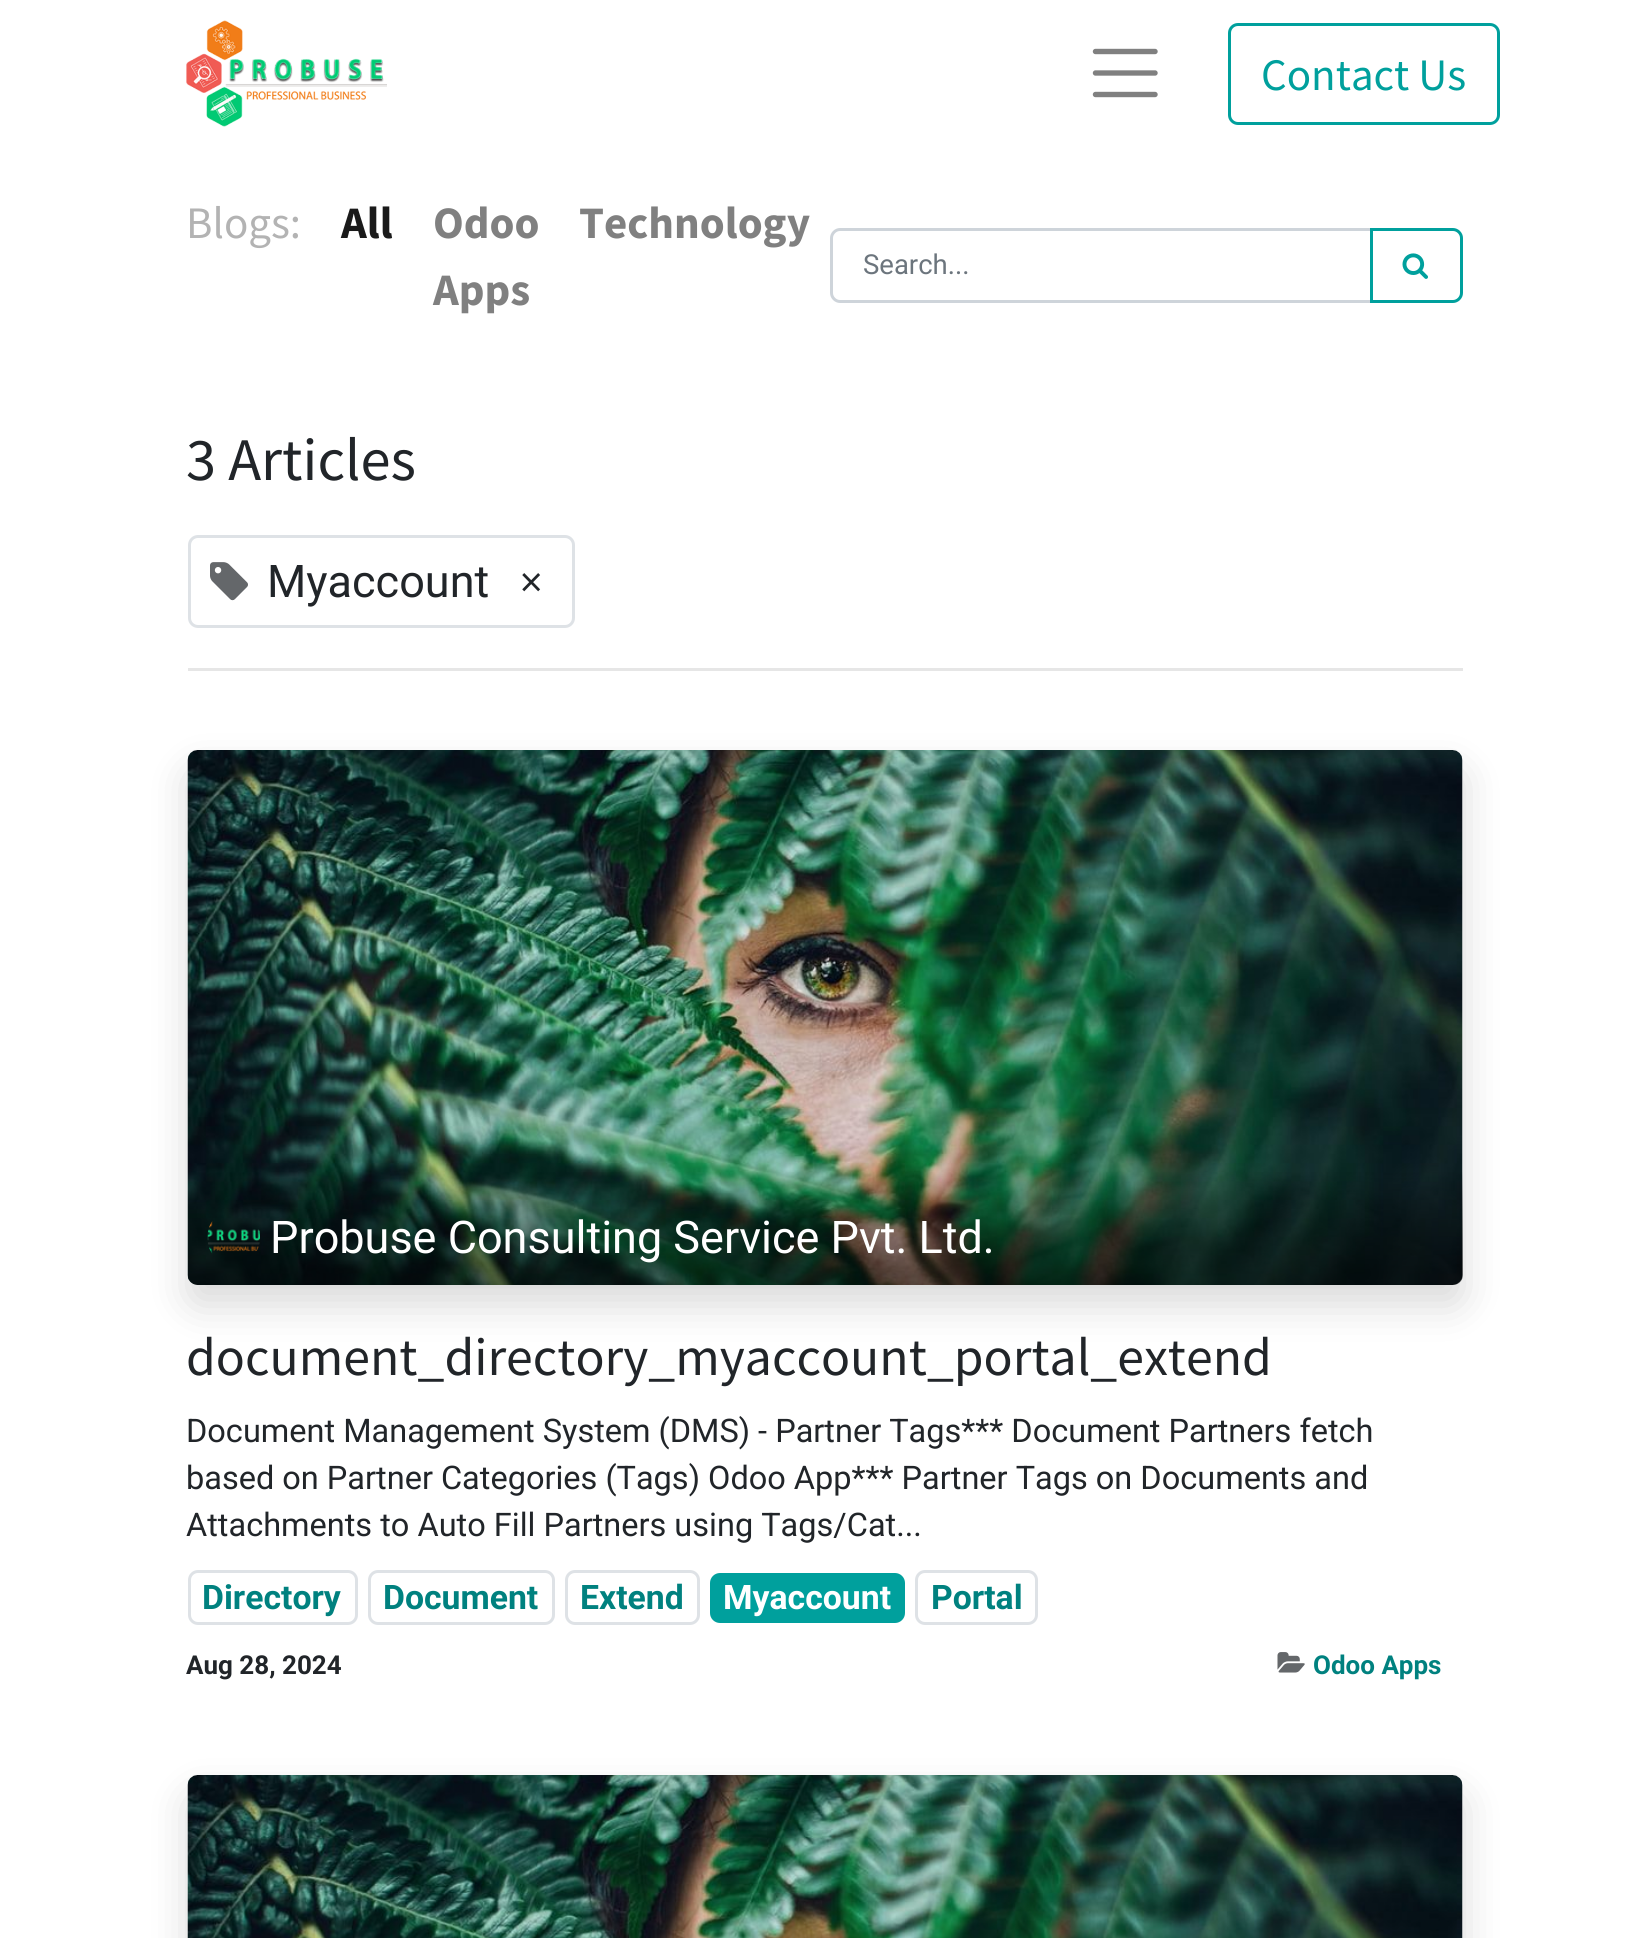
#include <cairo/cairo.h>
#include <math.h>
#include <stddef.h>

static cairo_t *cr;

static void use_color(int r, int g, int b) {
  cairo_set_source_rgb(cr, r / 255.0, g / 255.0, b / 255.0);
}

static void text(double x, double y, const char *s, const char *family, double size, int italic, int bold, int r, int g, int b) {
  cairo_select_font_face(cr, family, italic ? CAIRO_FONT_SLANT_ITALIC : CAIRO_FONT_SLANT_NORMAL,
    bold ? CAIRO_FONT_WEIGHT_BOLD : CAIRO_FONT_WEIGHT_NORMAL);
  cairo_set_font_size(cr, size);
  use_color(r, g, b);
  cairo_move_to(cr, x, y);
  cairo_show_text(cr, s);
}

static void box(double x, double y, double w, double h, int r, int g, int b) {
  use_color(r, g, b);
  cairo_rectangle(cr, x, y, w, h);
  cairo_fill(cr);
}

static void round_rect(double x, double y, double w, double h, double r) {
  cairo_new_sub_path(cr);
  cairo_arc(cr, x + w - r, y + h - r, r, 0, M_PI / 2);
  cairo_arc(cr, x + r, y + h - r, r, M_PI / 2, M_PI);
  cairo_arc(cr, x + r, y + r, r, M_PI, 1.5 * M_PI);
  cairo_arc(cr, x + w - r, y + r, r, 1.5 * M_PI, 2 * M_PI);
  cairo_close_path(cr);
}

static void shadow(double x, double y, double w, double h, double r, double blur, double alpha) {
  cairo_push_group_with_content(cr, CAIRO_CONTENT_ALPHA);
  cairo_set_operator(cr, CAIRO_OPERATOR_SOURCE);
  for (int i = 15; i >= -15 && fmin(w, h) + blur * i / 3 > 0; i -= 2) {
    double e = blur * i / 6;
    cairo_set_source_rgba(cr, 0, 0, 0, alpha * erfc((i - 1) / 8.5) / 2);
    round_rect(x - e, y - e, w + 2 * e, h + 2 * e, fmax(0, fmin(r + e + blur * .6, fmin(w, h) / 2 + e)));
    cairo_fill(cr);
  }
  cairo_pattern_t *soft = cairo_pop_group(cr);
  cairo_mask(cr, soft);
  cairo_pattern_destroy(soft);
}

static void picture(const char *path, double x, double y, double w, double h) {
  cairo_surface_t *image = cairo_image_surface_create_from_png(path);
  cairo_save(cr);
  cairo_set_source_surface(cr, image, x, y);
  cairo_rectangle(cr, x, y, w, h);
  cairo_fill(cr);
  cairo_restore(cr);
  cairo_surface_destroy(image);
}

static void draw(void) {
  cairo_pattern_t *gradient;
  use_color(255, 255, 255);
  cairo_paint(cr);
  picture("img_01.png", 186, 20, 201, 107);
  cairo_new_path(cr);
  cairo_move_to(cr, 1095.5, 51.5);
  cairo_line_to(cr, 1155, 51.5);
  cairo_move_to(cr, 1095.5, 73);
  cairo_line_to(cr, 1155, 73);
  cairo_move_to(cr, 1095.5, 94.5);
  cairo_line_to(cr, 1155, 94.5);
  use_color(128, 128, 128);
  cairo_set_line_width(cr, 5.4);
  cairo_set_line_cap(cr, CAIRO_LINE_CAP_ROUND);
  cairo_stroke(cr);
  round_rect(1229.5, 24.5, 269, 99, 8.5);
  use_color(0, 160, 157);
  cairo_set_line_width(cr, 3);
  cairo_set_line_cap(cr, CAIRO_LINE_CAP_BUTT);
  cairo_stroke(cr);
  cairo_new_path(cr);
  cairo_move_to(cr, 840, 229.5);
  cairo_line_to(cr, 1371.5, 229.5);
  cairo_line_to(cr, 1371.5, 301.5);
  cairo_line_to(cr, 840, 301.5);
  cairo_curve_to(cr, 835.5, 301.5, 831.5, 297.5, 831.5, 293);
  cairo_line_to(cr, 831.5, 238);
  cairo_curve_to(cr, 831.5, 233.5, 835.5, 229.5, 840, 229.5);
  cairo_close_path(cr);
  use_color(206, 212, 218);
  cairo_stroke(cr);
  cairo_new_path(cr);
  cairo_move_to(cr, 1371.5, 229.5);
  cairo_line_to(cr, 1453, 229.5);
  cairo_curve_to(cr, 1457.5, 229.5, 1461.5, 233.5, 1461.5, 238);
  cairo_line_to(cr, 1461.5, 293);
  cairo_curve_to(cr, 1461.5, 297.5, 1457.5, 301.5, 1453, 301.5);
  cairo_line_to(cr, 1371.5, 301.5);
  cairo_close_path(cr);
  use_color(0, 160, 157);
  cairo_stroke(cr);
  picture("img_02.png", 1402, 253, 26, 26);
  round_rect(189.5, 536.5, 384, 90, 8.5);
  use_color(222, 226, 230);
  cairo_stroke(cr);
  picture("img_03.png", 210, 562, 38, 39);
  box(188, 668, 1275, 3, 230, 230, 230);
  use_color(0, 0, 0);
  shadow(188, 770, 1275, 535, 10, 20, 0.15);
  picture("img_04.png", 187, 750, 1276, 535);
  gradient = cairo_pattern_create_linear(825, 1170, 825, 1285);
  cairo_pattern_add_color_stop_rgba(gradient, 0, 0, 0, 0, 0);
  cairo_pattern_add_color_stop_rgba(gradient, 0.19, 0, 0, 0, 0.13);
  cairo_pattern_add_color_stop_rgba(gradient, 0.34, 0, 0, 0, 0.23);
  cairo_pattern_add_color_stop_rgba(gradient, 0.47, 0, 0, 0, 0.31);
  cairo_pattern_add_color_stop_rgba(gradient, 0.56, 0, 0, 0, 0.36);
  cairo_pattern_add_color_stop_rgba(gradient, 0.65, 0, 0, 0, 0.4);
  cairo_pattern_add_color_stop_rgba(gradient, 0.73, 0, 0, 0, 0.43);
  cairo_pattern_add_color_stop_rgba(gradient, 0.8, 0, 0, 0, 0.46);
  cairo_pattern_add_color_stop_rgba(gradient, 0.86, 0, 0, 0, 0.48);
  cairo_pattern_add_color_stop_rgba(gradient, 0.91, 0, 0, 0, 0.49);
  cairo_pattern_add_color_stop_rgba(gradient, 0.95, 0, 0, 0, 0.49);
  cairo_pattern_add_color_stop_rgba(gradient, 0.98, 0, 0, 0, 0.5);
  cairo_pattern_add_color_stop_rgba(gradient, 1, 0, 0, 0, 0.5);
  cairo_set_source(cr, gradient);
  cairo_pattern_destroy(gradient);
  cairo_new_path(cr);
  cairo_move_to(cr, 188, 1170);
  cairo_line_to(cr, 1463, 1170);
  cairo_line_to(cr, 1463, 1275);
  cairo_curve_to(cr, 1463, 1280.5, 1458.5, 1285, 1453, 1285);
  cairo_line_to(cr, 198, 1285);
  cairo_curve_to(cr, 192.5, 1285, 188, 1280.5, 188, 1275);
  cairo_close_path(cr);
  cairo_fill(cr);
  picture("img_05.png", 207, 1221, 53, 33);
  round_rect(189.5, 1571.5, 167, 52, 8.5);
  use_color(222, 226, 230);
  cairo_stroke(cr);
  round_rect(369.5, 1571.5, 184, 52, 8.5);
  cairo_stroke(cr);
  round_rect(566.5, 1571.5, 132, 52, 8.5);
  cairo_stroke(cr);
  use_color(0, 160, 157);
  round_rect(710, 1573, 195, 50, 10);
  cairo_fill(cr);
  round_rect(916.5, 1571.5, 120, 52, 8.5);
  use_color(222, 226, 230);
  cairo_stroke(cr);
  picture("img_06.png", 1277, 1652, 28, 21);
  use_color(0, 0, 0);
  shadow(188, 1795, 1275, 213, 10, 20, 0.15);
  picture("img_07.png", 187, 1775, 1276, 163);
  text(1261, 90, "Contact Us", "Source Sans Pro", 45, 0, 0, 0, 160, 157);
  text(186, 238, "Blogs:", "Source Sans Pro", 45, 0, 0, 179, 179, 179);
  text(341, 238, "All", "Source Sans Pro", 45, 0, 1, 26, 26, 26);
  text(433, 238, "Odoo", "Source Sans Pro", 45, 0, 1, 128, 128, 128);
  text(433, 305, "Apps", "Source Sans Pro", 45, 0, 1, 128, 128, 128);
  text(579, 238, "Technology", "Source Sans Pro", 45, 0, 1, 128, 128, 128);
  text(863, 274, "Search...", "Roboto", 27.5, 0, 0, 108, 117, 125);
  text(186, 480, "3 Articles", "Source Sans Pro", 60.5, 0, 0, 33, 37, 41);
  text(267, 597, "Myaccount", "Roboto", 45, 0, 0, 33, 37, 41);
  text(520, 597, "×", "Source Sans Pro", 45, 0, 0, 33, 37, 41);
  text(270, 1253, "Probuse Consulting Service Pvt. Ltd.", "Roboto", 45, 0, 0, 255, 255, 255);
  text(186, 1375, "document_directory_myaccount_portal_extend", "Source Sans Pro", 53.75, 0, 0, 33, 37, 41);
  text(186, 1442, "Document Management System (DMS) - Partner Tags*** Document Partners fetch", "Roboto", 32.5, 0, 0, 33, 37, 41);
  text(186, 1489, "based on Partner Categories (Tags) Odoo App*** Partner Tags on Documents and", "Roboto", 32.5, 0, 0, 33, 37, 41);
  text(186, 1536, "Attachments to Auto Fill Partners using Tags/Cat...", "Roboto", 32.5, 0, 0, 33, 37, 41);
  text(202, 1609, "Directory", "Roboto", 33.75, 0, 1, 0, 129, 127);
  text(383, 1609, "Document", "Roboto", 33.75, 0, 1, 0, 129, 127);
  text(580, 1609, "Extend", "Roboto", 33.75, 0, 1, 0, 129, 127);
  text(723, 1609, "Myaccount", "Roboto", 33.75, 0, 1, 255, 255, 255);
  text(931, 1609, "Portal", "Roboto", 33.75, 0, 1, 0, 129, 127);
  text(186, 1674, "Aug 28, 2024", "Roboto", 26, 0, 1, 33, 37, 41);
  text(1313, 1674, "Odoo Apps", "Roboto", 26, 0, 1, 0, 129, 127);
}

int main(void) {
  cairo_surface_t *surface = cairo_image_surface_create(CAIRO_FORMAT_RGB24, 1647, 1938);
  cr = cairo_create(surface);
  cairo_font_options_t *options = cairo_font_options_create();
  cairo_font_options_set_hint_metrics(options, CAIRO_HINT_METRICS_OFF);
  cairo_font_options_set_hint_style(options, CAIRO_HINT_STYLE_NONE);
  cairo_set_font_options(cr, options);
  cairo_set_miter_limit(cr, 4);
  draw();
  cairo_surface_write_to_png(surface, "out.png");
  cairo_font_options_destroy(options);
  cairo_destroy(cr);
  cairo_surface_destroy(surface);
  return 0;
}
